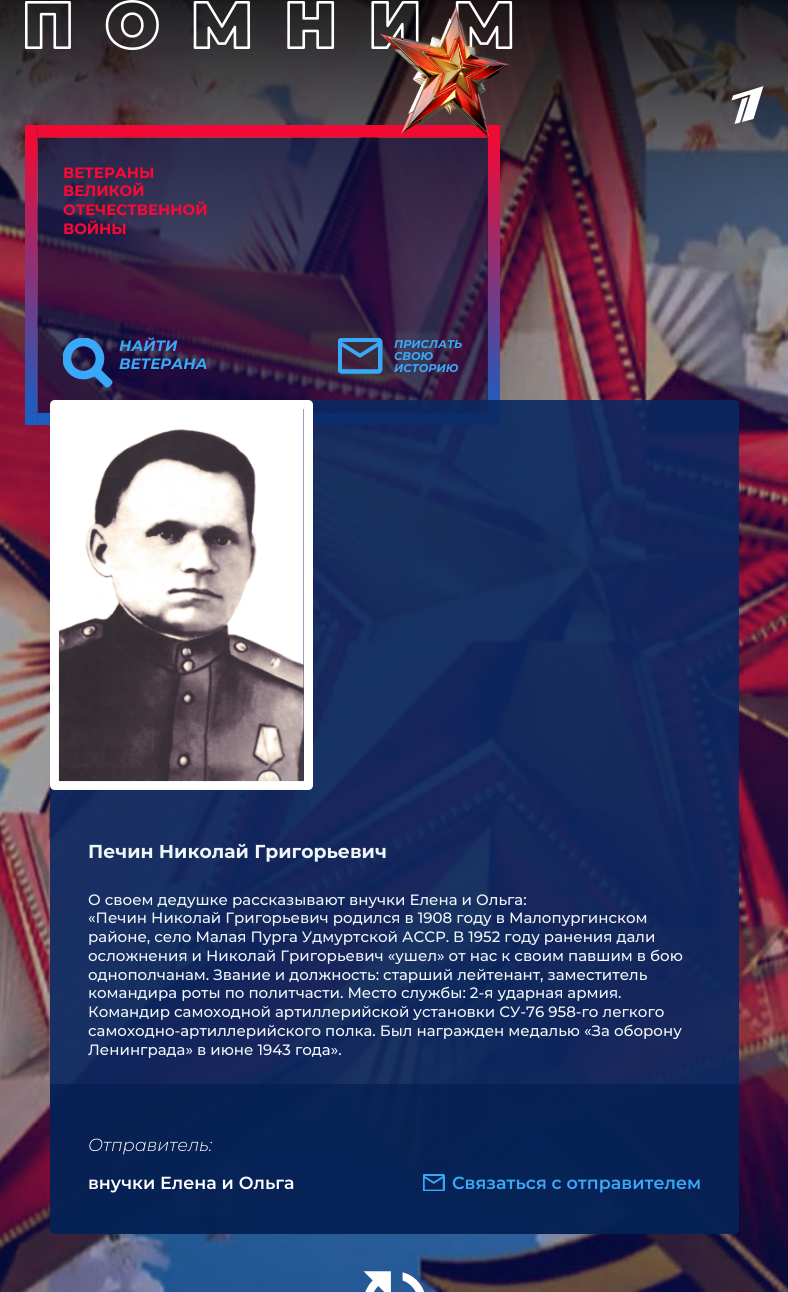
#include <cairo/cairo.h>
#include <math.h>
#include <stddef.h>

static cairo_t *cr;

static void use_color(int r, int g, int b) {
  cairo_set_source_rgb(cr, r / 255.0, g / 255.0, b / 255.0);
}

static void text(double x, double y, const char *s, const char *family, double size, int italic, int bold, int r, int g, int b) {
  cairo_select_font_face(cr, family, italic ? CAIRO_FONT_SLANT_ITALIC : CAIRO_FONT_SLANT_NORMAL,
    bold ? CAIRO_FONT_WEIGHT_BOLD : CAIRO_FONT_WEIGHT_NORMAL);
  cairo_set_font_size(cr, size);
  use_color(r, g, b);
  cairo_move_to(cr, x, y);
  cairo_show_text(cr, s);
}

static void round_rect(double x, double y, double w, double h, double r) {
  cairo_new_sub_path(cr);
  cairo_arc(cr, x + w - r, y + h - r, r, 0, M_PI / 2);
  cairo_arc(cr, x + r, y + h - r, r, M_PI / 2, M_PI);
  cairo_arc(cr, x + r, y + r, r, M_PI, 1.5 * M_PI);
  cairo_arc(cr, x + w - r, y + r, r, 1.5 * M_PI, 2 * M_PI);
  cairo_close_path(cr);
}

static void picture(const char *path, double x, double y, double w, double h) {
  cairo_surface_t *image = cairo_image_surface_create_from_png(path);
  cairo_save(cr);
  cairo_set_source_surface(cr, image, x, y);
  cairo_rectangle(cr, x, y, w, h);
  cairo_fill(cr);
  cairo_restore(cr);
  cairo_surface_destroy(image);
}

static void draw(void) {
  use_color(255, 255, 255);
  cairo_paint(cr);
  picture("img_01.png", 0, 0, 788, 1292);
  picture("img_02.png", 25, 0, 488, 50);
  picture("img_04.png", 25, 125, 475, 300);
  cairo_set_source_rgba(cr, 0.027, 0.051, 0.251, 0.6);
  cairo_rectangle(cr, 38, 138, 450, 275);
  cairo_fill(cr);
  picture("img_03.png", 380, 6, 130, 133);
  use_color(255, 255, 255);
  cairo_set_fill_rule(cr, CAIRO_FILL_RULE_EVEN_ODD);
  cairo_new_path(cr);
  cairo_move_to(cr, 731.5, 100.5);
  cairo_line_to(cr, 733, 95.5);
  cairo_line_to(cr, 763.5, 86);
  cairo_line_to(cr, 753.5, 119);
  cairo_line_to(cr, 742, 122);
  cairo_line_to(cr, 750.5, 94.5);
  cairo_close_path(cr);
  cairo_move_to(cr, 734.5, 124);
  cairo_line_to(cr, 742, 99);
  cairo_line_to(cr, 748, 97);
  cairo_line_to(cr, 740, 122.5);
  cairo_close_path(cr);
  cairo_fill(cr);
  picture("img_05.png", 63, 338, 50, 50);
  picture("img_06.png", 338, 338, 45, 36);
  cairo_set_source_rgba(cr, 0.043, 0.157, 0.38, 0.9);
  round_rect(50, 400, 689, 834, 5);
  cairo_fill(cr);
  use_color(255, 255, 255);
  cairo_new_path(cr);
  cairo_move_to(cr, 55, 400);
  cairo_curve_to(cr, 52, 400, 50, 402, 50, 405);
  cairo_line_to(cr, 50, 785);
  cairo_curve_to(cr, 50, 788, 52, 790, 55, 790);
  cairo_line_to(cr, 308, 790);
  cairo_curve_to(cr, 311, 790, 313, 788, 313, 785);
  cairo_line_to(cr, 313, 405);
  cairo_curve_to(cr, 313, 402, 311, 400, 308, 400);
  cairo_close_path(cr);
  cairo_move_to(cr, 59, 409);
  cairo_line_to(cr, 59, 781);
  cairo_line_to(cr, 304, 781);
  cairo_line_to(cr, 304, 409);
  cairo_close_path(cr);
  cairo_fill(cr);
  picture("img_07.png", 58, 409, 246, 373);
  cairo_set_source_rgba(cr, 0.016, 0.118, 0.318, 0.7);
  cairo_new_path(cr);
  cairo_move_to(cr, 50, 1084);
  cairo_line_to(cr, 739, 1084);
  cairo_line_to(cr, 739, 1229);
  cairo_curve_to(cr, 739, 1232, 737, 1234, 734, 1234);
  cairo_line_to(cr, 55, 1234);
  cairo_curve_to(cr, 52, 1234, 50, 1232, 50, 1229);
  cairo_close_path(cr);
  cairo_fill(cr);
  picture("img_08.png", 423, 1174, 22, 17);
  picture("img_09.png", 363, 1271, 62, 21);
  text(63, 178, "ВЕТЕРАНЫ", "Montserrat", 15, 0, 1, 255, 7, 52);
  text(63, 196, "ВЕЛИКОЙ", "Montserrat", 15, 0, 1, 255, 7, 52);
  text(63, 215, "ОТЕЧЕСТВЕННОЙ", "Montserrat", 15, 0, 1, 255, 7, 52);
  text(63, 234, "ВОЙНЫ", "Montserrat", 15, 0, 1, 255, 7, 52);
  text(119, 351, "НАЙТИ", "Montserrat", 15, 1, 1, 58, 168, 248);
  text(119, 369, "ВЕТЕРАНА", "Montserrat", 15, 1, 1, 58, 168, 248);
  text(394, 348, "ПРИСЛАТЬ", "Montserrat", 11.25, 1, 1, 58, 168, 248);
  text(394, 360, "СВОЮ", "Montserrat", 11.25, 1, 1, 58, 168, 248);
  text(394, 372, "ИСТОРИЮ", "Montserrat", 11.25, 1, 1, 58, 168, 248);
  text(88, 858, "Печин Николай Григорьевич", "Montserrat", 18.75, 0, 1, 239, 246, 248);
  text(88, 905, "О своем дедушке рассказывают внучки Елена и Ольга:", "Montserrat Medium", 15, 0, 0, 239, 246, 248);
  text(88, 923, "«Печин Николай Григорьевич родился в 1908 году в Малопургинском", "Montserrat Medium", 15, 0, 0, 239, 246, 248);
  text(88, 942, "районе, село Малая Пурга Удмуртской АССР. В 1952 году ранения дали", "Montserrat Medium", 15, 0, 0, 239, 246, 248);
  text(88, 961, "осложнения и Николай Григорьевич «ушел» от нас к своим павшим в бою", "Montserrat Medium", 15, 0, 0, 239, 246, 248);
  text(88, 980, "однополчанам. Звание и должность: старший лейтенант, заместитель", "Montserrat Medium", 15, 0, 0, 239, 246, 248);
  text(88, 998, "командира роты по политчасти. Место службы: 2-я ударная армия.", "Montserrat Medium", 15, 0, 0, 239, 246, 248);
  text(88, 1017, "Командир самоходной артиллерийской установки СУ-76 958-го легкого", "Montserrat Medium", 15, 0, 0, 239, 246, 248);
  text(88, 1036, "самоходно-артиллерийского полка. Был награжден медалью «За оборону", "Montserrat Medium", 15, 0, 0, 239, 246, 248);
  text(88, 1055, "Ленинграда» в июне 1943 года».", "Montserrat Medium", 15, 0, 0, 239, 246, 248);
  text(88, 1151, "Отправитель:", "Montserrat Light", 17.5, 1, 0, 255, 255, 255);
  text(88, 1189, "внучки Елена и Ольга", "Montserrat SemiBold", 17.5, 0, 0, 255, 255, 255);
  text(452, 1189, "Связаться с отправителем", "Montserrat SemiBold", 17.5, 0, 0, 58, 168, 248);
}

int main(void) {
  cairo_surface_t *surface = cairo_image_surface_create(CAIRO_FORMAT_RGB24, 788, 1292);
  cr = cairo_create(surface);
  cairo_font_options_t *options = cairo_font_options_create();
  cairo_font_options_set_hint_metrics(options, CAIRO_HINT_METRICS_OFF);
  cairo_font_options_set_hint_style(options, CAIRO_HINT_STYLE_NONE);
  cairo_set_font_options(cr, options);
  cairo_set_miter_limit(cr, 4);
  draw();
  cairo_surface_write_to_png(surface, "out.png");
  cairo_font_options_destroy(options);
  cairo_destroy(cr);
  cairo_surface_destroy(surface);
  return 0;
}
